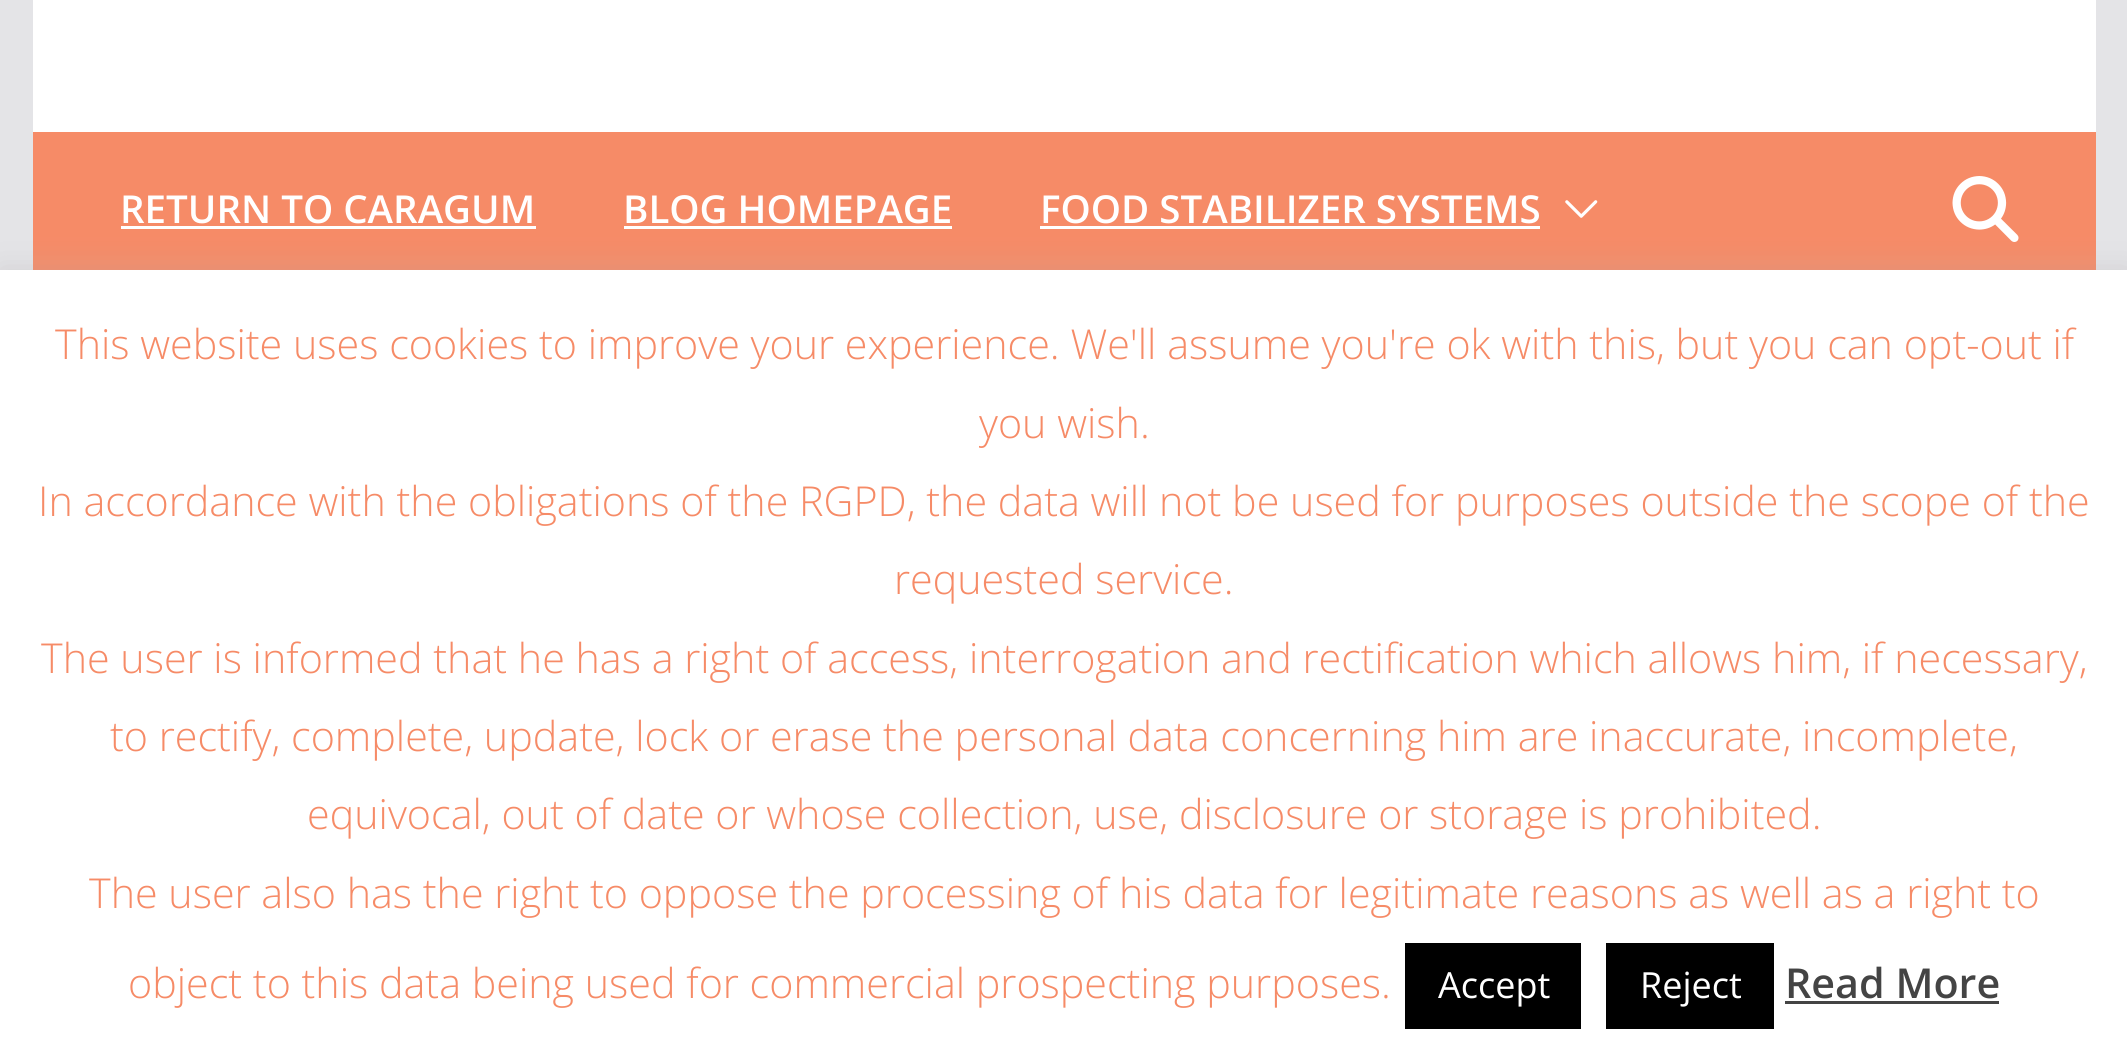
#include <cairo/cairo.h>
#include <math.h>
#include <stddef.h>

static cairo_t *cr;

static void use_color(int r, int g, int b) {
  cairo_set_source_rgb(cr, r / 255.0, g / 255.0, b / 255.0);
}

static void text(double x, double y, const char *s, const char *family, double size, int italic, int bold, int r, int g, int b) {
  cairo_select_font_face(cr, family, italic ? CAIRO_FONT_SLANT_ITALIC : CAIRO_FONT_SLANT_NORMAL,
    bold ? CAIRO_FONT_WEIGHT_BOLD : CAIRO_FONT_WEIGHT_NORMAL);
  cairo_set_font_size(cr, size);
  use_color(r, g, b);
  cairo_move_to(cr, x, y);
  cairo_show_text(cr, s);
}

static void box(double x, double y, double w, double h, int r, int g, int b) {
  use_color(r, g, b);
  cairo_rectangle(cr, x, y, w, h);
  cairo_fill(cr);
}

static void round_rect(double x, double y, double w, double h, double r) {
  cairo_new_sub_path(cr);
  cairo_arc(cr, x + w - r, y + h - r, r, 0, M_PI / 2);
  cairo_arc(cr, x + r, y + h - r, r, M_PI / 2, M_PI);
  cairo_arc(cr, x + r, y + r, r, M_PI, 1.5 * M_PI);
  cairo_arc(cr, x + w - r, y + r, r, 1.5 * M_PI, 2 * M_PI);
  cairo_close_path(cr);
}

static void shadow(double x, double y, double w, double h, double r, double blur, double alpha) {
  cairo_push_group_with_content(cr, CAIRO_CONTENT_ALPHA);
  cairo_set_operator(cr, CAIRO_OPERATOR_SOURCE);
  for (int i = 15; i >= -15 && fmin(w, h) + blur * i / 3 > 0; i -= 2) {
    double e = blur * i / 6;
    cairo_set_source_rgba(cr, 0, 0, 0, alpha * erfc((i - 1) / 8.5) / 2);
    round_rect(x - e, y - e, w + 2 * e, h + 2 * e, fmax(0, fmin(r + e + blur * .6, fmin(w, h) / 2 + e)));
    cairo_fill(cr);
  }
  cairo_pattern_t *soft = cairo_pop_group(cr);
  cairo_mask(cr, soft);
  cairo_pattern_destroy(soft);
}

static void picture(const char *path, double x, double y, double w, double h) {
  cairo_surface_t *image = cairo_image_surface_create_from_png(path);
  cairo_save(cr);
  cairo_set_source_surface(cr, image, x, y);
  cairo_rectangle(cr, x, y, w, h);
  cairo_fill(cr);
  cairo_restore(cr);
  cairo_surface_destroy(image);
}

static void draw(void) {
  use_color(228, 228, 231);
  cairo_paint(cr);
  box(33, 0, 2063, 132, 255, 255, 255);
  box(33, 132, 2063, 138, 246, 139, 103);
  box(121, 226, 415, 3, 255, 255, 255);
  box(624, 226, 328, 3, 255, 255, 255);
  box(1040, 226, 500, 3, 255, 255, 255);
  picture("img_01.png", 1565, 200, 33, 18);
  picture("img_02.png", 1952, 176, 67, 66);
  use_color(172, 171, 171);
  shadow(0, 267, 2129, 792, 0, 14, 0.3);
  box(0, 270, 2127, 789, 255, 255, 255);
  box(1405, 943, 176, 86, 0, 0, 0);
  box(1606, 943, 168, 86, 0, 0, 0);
  box(1785, 1001, 214, 3, 68, 68, 68);
  text(120, 223, "RETURN TO CARAGUM", "Open Sans SemiBold", 38.5, 0, 0, 255, 255, 255);
  text(623, 223, "BLOG HOMEPAGE", "Open Sans SemiBold", 38.5, 0, 0, 255, 255, 255);
  text(1040, 223, "FOOD STABILIZER SYSTEMS", "Open Sans SemiBold", 38.5, 0, 0, 255, 255, 255);
  text(55, 359, "This website uses cookies to improve your experience. We'll assume you're ok with this, but you can opt-out if", "Open Sans Light", 41.25, 0, 0, 246, 139, 103);
  text(979, 438, "you wish.", "Open Sans Light", 41.25, 0, 0, 246, 139, 103);
  text(38, 516, "In accordance with the obligations of the RGPD, the data will not be used for purposes outside the scope of the", "Open Sans Light", 41.25, 0, 0, 246, 139, 103);
  text(894, 594, "requested service.", "Open Sans Light", 41.25, 0, 0, 246, 139, 103);
  text(41, 673, "The user is informed that he has a right of access, interrogation and rectification which allows him, if necessary,", "Open Sans Light", 41.25, 0, 0, 246, 139, 103);
  text(110, 751, "to rectify, complete, update, lock or erase the personal data concerning him are inaccurate, incomplete,", "Open Sans Light", 41.25, 0, 0, 246, 139, 103);
  text(307, 829, "equivocal, out of date or whose collection, use, disclosure or storage is prohibited.", "Open Sans Light", 41.25, 0, 0, 246, 139, 103);
  text(89, 908, "The user also has the right to oppose the processing of his data for legitimate reasons as well as a right to", "Open Sans Light", 41.25, 0, 0, 246, 139, 103);
  text(128, 998, "object to this data being used for commercial prospecting purposes.", "Open Sans Light", 41.25, 0, 0, 246, 139, 103);
  text(1438, 998, "Accept", "Open Sans", 36, 0, 0, 255, 255, 255);
  text(1640, 998, "Reject", "Open Sans", 36, 0, 0, 255, 255, 255);
  text(1785, 998, "Read More", "Open Sans SemiBold", 41.25, 0, 0, 68, 68, 68);
}

int main(void) {
  cairo_surface_t *surface = cairo_image_surface_create(CAIRO_FORMAT_RGB24, 2127, 1059);
  cr = cairo_create(surface);
  cairo_font_options_t *options = cairo_font_options_create();
  cairo_font_options_set_hint_metrics(options, CAIRO_HINT_METRICS_OFF);
  cairo_font_options_set_hint_style(options, CAIRO_HINT_STYLE_NONE);
  cairo_set_font_options(cr, options);
  cairo_set_miter_limit(cr, 4);
  draw();
  cairo_surface_write_to_png(surface, "out.png");
  cairo_font_options_destroy(options);
  cairo_destroy(cr);
  cairo_surface_destroy(surface);
  return 0;
}
